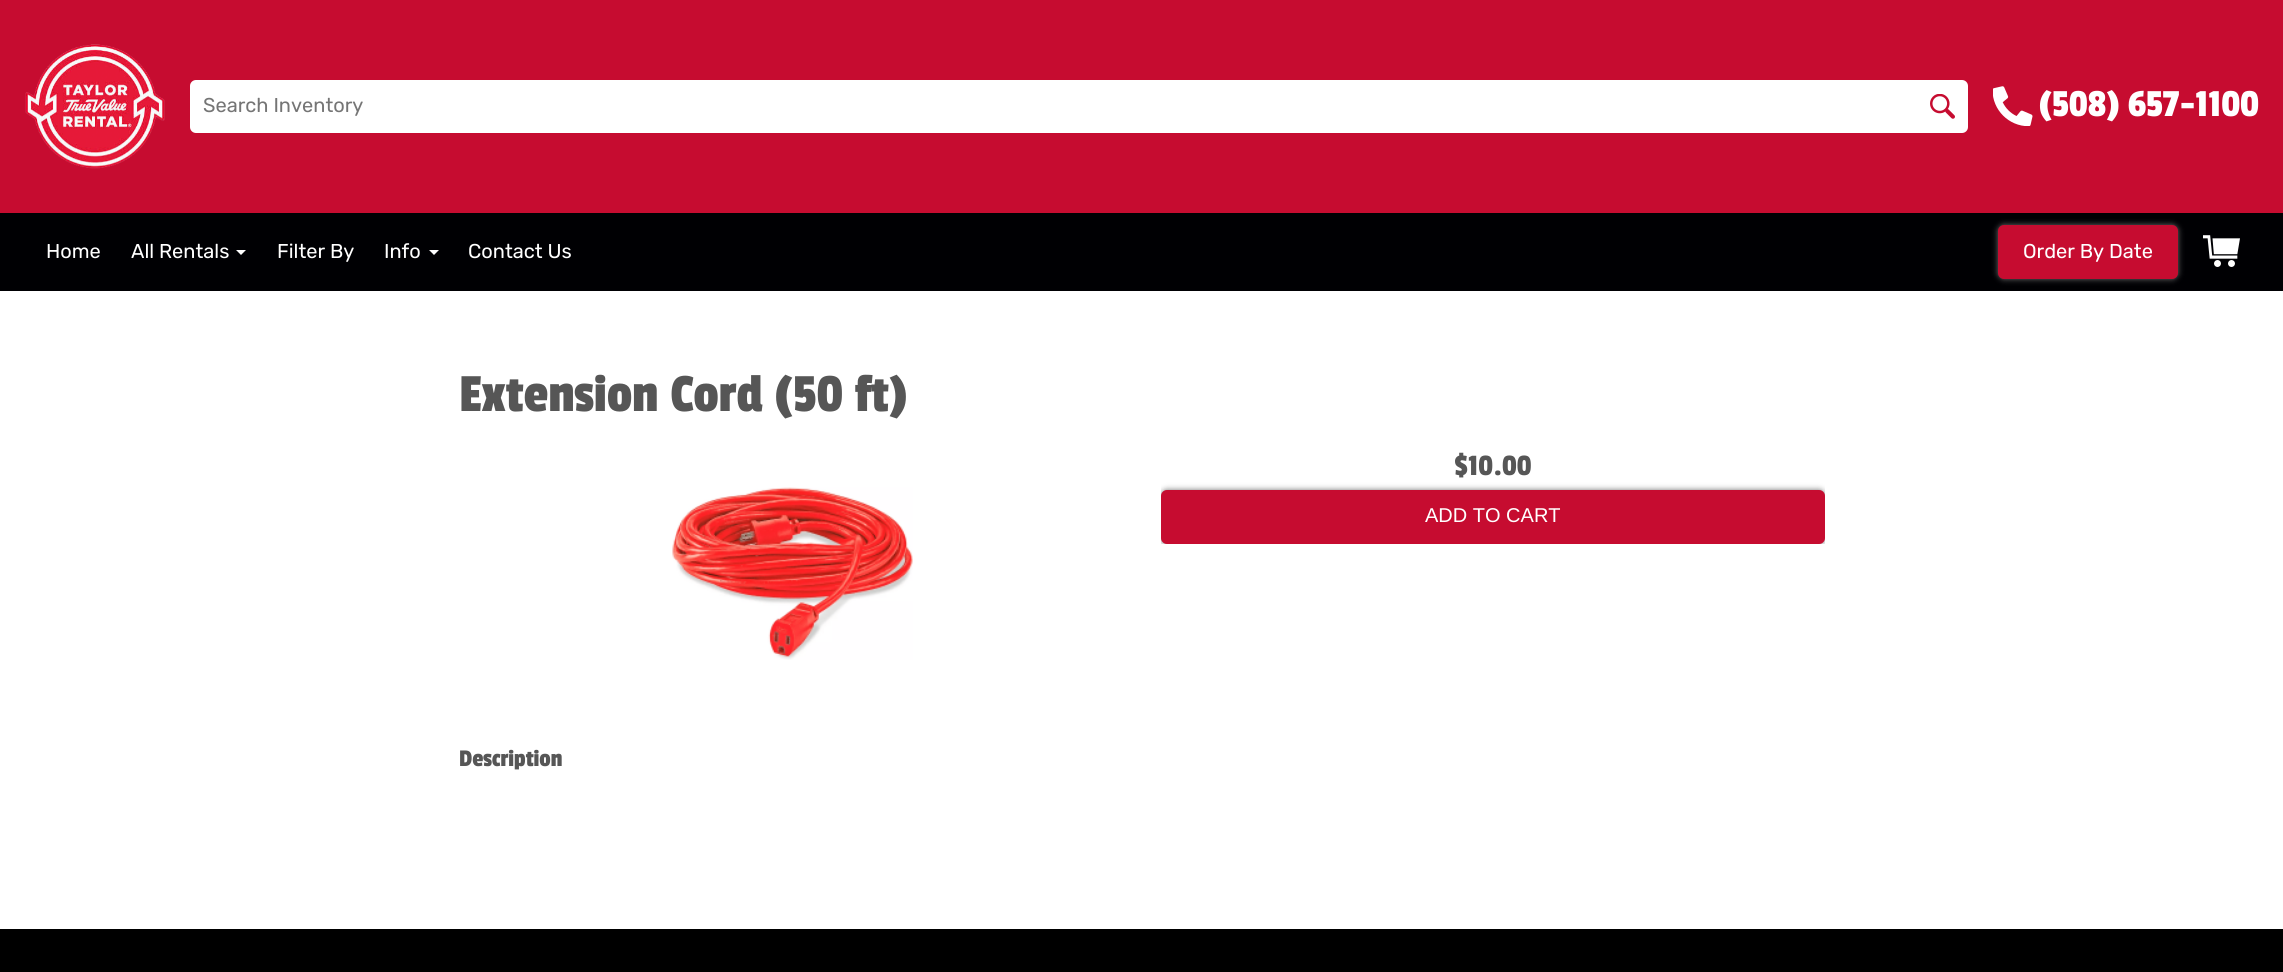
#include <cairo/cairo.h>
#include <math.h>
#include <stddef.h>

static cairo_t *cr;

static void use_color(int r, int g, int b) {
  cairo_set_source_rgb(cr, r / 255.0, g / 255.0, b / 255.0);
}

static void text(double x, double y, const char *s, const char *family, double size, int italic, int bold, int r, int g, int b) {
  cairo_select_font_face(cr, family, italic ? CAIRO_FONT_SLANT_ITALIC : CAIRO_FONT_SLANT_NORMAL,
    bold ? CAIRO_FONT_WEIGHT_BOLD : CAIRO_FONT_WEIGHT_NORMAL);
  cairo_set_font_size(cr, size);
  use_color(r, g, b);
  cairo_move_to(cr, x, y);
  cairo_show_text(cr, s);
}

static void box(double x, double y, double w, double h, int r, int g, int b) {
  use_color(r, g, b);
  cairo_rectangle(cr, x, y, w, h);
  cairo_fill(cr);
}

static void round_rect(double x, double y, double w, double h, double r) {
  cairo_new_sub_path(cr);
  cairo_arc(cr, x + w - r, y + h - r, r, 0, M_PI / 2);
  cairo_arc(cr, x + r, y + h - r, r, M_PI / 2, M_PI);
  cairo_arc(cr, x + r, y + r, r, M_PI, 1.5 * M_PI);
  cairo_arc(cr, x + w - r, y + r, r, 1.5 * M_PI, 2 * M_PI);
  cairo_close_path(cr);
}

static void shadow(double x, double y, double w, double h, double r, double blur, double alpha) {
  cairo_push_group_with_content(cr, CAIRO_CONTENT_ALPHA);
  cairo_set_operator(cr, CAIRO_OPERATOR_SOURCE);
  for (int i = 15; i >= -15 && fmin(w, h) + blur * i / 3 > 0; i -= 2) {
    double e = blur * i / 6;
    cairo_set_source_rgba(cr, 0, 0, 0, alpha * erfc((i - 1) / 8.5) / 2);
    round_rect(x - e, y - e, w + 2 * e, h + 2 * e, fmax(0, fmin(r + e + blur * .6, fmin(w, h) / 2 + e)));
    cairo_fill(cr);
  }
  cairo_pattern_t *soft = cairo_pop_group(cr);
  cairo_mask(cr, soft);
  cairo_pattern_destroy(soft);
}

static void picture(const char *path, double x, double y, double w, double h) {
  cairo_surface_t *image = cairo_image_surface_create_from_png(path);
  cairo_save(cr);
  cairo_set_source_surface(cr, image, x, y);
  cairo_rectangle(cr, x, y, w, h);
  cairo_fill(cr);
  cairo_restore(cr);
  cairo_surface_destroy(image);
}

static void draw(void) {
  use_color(255, 255, 255);
  cairo_paint(cr);
  box(0, 0, 2283, 213, 198, 12, 48);
  picture("img_01.png", 25, 44, 140, 125);
  use_color(255, 255, 255);
  round_rect(190, 80, 1778, 53, 6);
  cairo_fill(cr);
  picture("img_02.png", 1930, 94, 25, 25);
  picture("img_03.png", 1993, 86, 40, 40);
  box(0, 213, 2283, 78, 0, 0, 3);
  use_color(255, 255, 255);
  cairo_new_path(cr);
  cairo_move_to(cr, 236, 250);
  cairo_line_to(cr, 246, 250);
  cairo_line_to(cr, 241, 255);
  cairo_close_path(cr);
  cairo_fill(cr);
  cairo_new_path(cr);
  cairo_move_to(cr, 429, 250);
  cairo_line_to(cr, 439, 250);
  cairo_line_to(cr, 434, 255);
  cairo_close_path(cr);
  cairo_fill(cr);
  use_color(112, 112, 112);
  shadow(1998, 225, 180, 54, 6, 3, 1);
  use_color(198, 12, 48);
  round_rect(1998, 225, 180, 54, 6);
  cairo_fill(cr);
  picture("img_04.png", 2203, 235, 37, 32);
  picture("img_05.png", 672, 487, 241, 173);
  cairo_save(cr);
  cairo_rectangle(cr, 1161, 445, 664, 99);
  cairo_clip(cr);
  use_color(112, 112, 112);
  shadow(1161, 490, 664, 54, 6, 3, 1);
  cairo_restore(cr);
  round_rect(1161, 490, 664, 54, 6);
  cairo_fill(cr);
  box(0, 929, 2283, 43, 0, 0, 0);
  text(203, 112, "Search Inventory", "Rubik", 20, 0, 0, 117, 117, 117);
  text(2039, 116, "(508) 657-1100", "Passion One", 40, 0, 0, 255, 255, 255);
  text(46, 258, "Home", "Rubik", 20, 0, 0, 255, 255, 255);
  text(131, 258, "All Rentals", "Rubik", 20, 0, 0, 255, 255, 255);
  text(277, 258, "Filter By", "Rubik", 20, 0, 0, 255, 255, 255);
  text(384, 258, "Info", "Rubik", 20, 0, 0, 255, 255, 255);
  text(468, 258, "Contact Us", "Rubik", 20, 0, 0, 255, 255, 255);
  text(2023, 258, "Order By Date", "Rubik", 20, 0, 0, 255, 255, 255);
  text(459, 411, "Extension Cord (50 ft)", "Passion One", 56, 0, 0, 86, 86, 86);
  text(1454, 475, "$10.00", "Passion One", 31, 0, 0, 86, 86, 86);
  text(1425, 522, "ADD TO CART", "Liberation Sans", 20, 0, 0, 255, 255, 255);
  text(459, 766, "Description", "Passion One", 25, 0, 0, 86, 86, 86);
}

int main(void) {
  cairo_surface_t *surface = cairo_image_surface_create(CAIRO_FORMAT_RGB24, 2283, 972);
  cr = cairo_create(surface);
  cairo_font_options_t *options = cairo_font_options_create();
  cairo_font_options_set_hint_metrics(options, CAIRO_HINT_METRICS_OFF);
  cairo_font_options_set_hint_style(options, CAIRO_HINT_STYLE_NONE);
  cairo_set_font_options(cr, options);
  cairo_set_miter_limit(cr, 4);
  draw();
  cairo_surface_write_to_png(surface, "out.png");
  cairo_font_options_destroy(options);
  cairo_destroy(cr);
  cairo_surface_destroy(surface);
  return 0;
}
